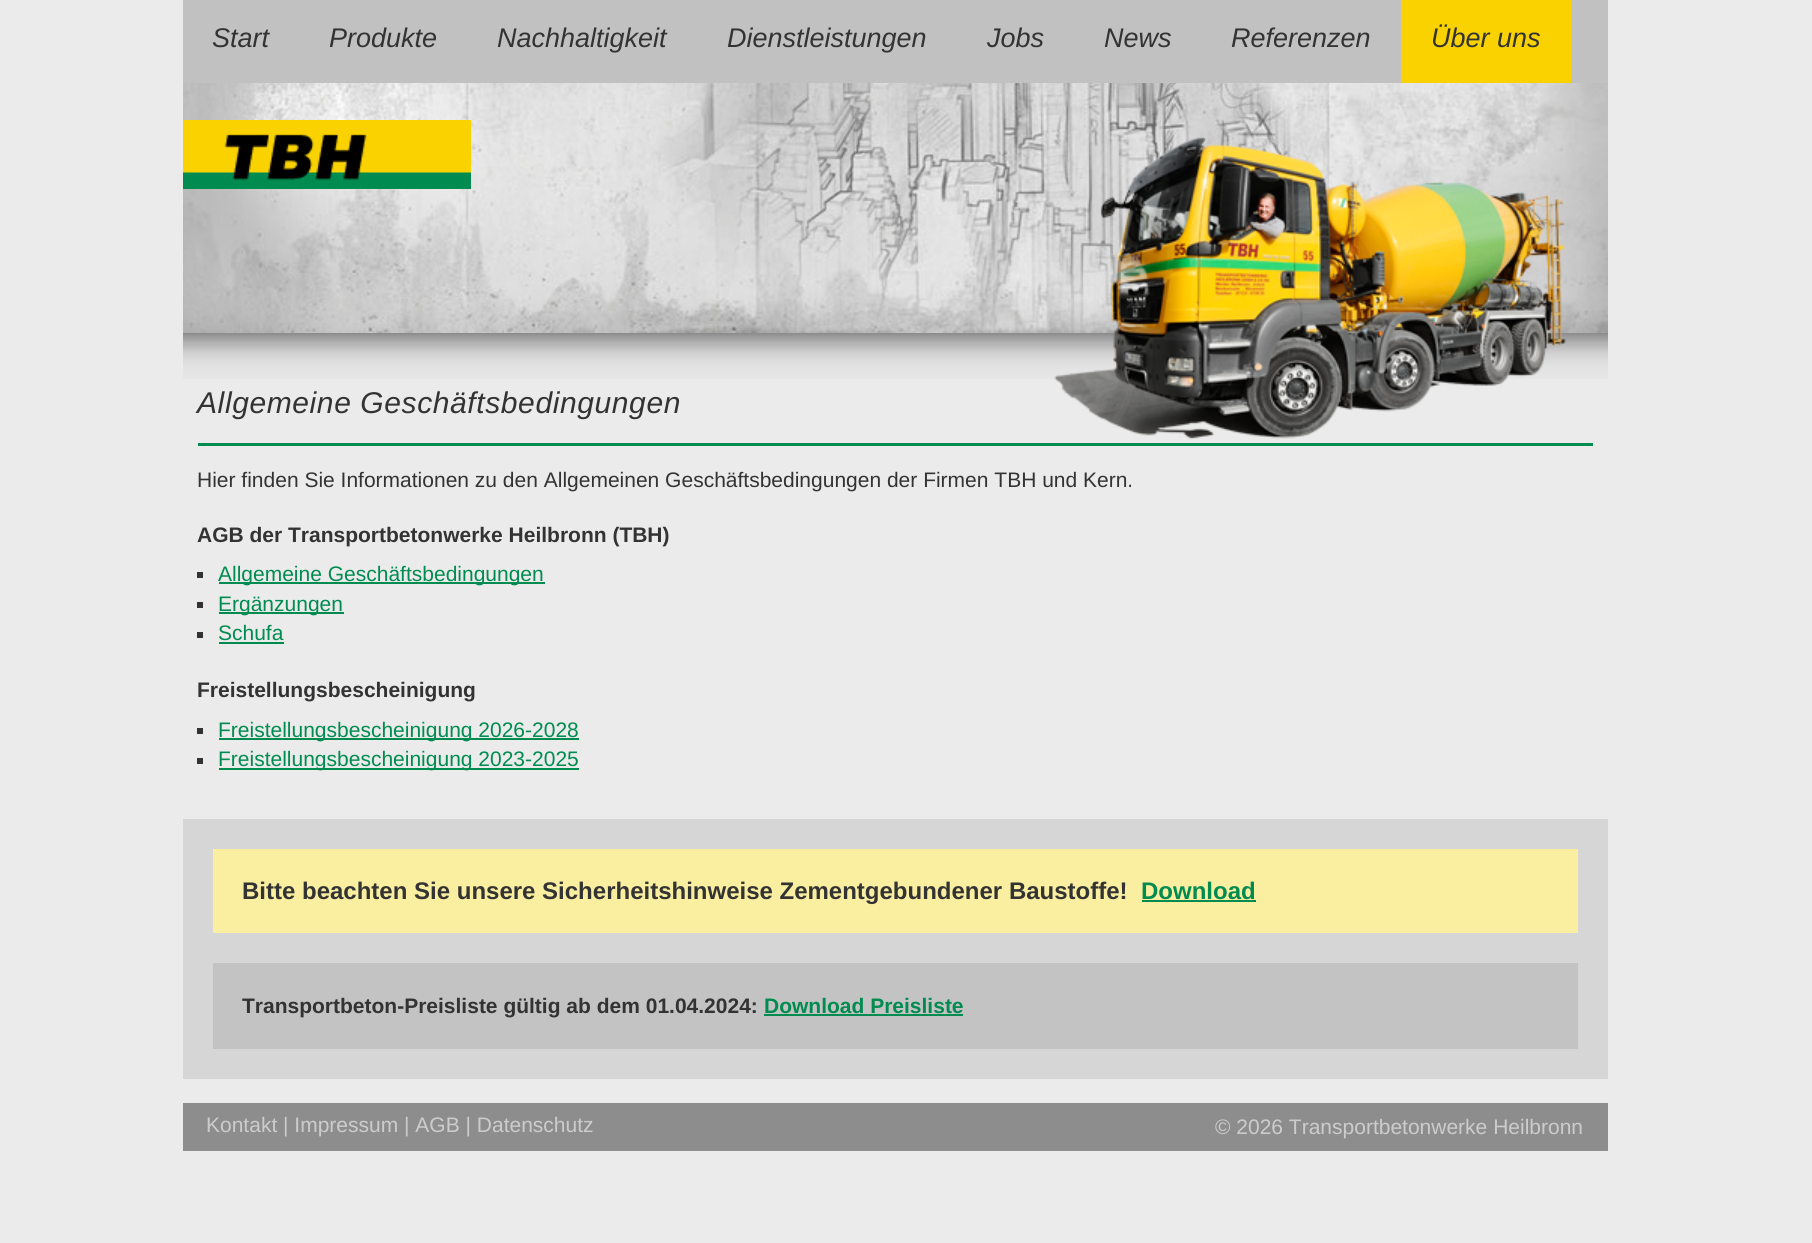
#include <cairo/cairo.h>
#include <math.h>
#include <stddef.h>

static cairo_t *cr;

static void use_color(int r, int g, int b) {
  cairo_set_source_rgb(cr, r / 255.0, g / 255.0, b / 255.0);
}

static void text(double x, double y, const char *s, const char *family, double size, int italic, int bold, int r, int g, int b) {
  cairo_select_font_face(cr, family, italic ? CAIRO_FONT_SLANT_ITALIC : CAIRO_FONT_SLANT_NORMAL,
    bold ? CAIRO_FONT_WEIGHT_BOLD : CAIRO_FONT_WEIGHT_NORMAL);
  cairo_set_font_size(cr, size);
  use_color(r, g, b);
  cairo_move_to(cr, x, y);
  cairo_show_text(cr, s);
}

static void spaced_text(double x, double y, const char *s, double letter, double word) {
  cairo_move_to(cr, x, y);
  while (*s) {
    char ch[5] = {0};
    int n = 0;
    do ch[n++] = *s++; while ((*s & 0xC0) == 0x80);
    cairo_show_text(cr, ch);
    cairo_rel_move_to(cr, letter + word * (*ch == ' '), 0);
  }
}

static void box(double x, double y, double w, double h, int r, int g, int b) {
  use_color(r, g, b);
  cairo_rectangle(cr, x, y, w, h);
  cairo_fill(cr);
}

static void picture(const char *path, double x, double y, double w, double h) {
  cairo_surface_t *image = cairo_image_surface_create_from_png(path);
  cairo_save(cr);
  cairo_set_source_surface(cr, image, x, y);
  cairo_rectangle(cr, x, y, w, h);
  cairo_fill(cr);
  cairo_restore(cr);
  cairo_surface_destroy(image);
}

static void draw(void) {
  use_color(235, 235, 235);
  cairo_paint(cr);
  box(183, 0, 1425, 83, 193, 193, 193);
  box(1401, 0, 170, 83, 250, 210, 0);
  picture("img_01.png", 183, 83, 1425, 250);
  picture("img_02.png", 183, 120, 288, 69);
  picture("img_04.png", 183, 333, 1425, 46);
  picture("img_03.png", 1054, 137, 513, 302);
  box(198, 443, 1395, 3, 0, 140, 80);
  box(197, 572, 6, 6, 51, 51, 51);
  box(219, 582, 326, 2, 0, 140, 80);
  box(197, 602, 6, 6, 51, 51, 51);
  box(219, 612, 125, 2, 0, 140, 80);
  box(197, 632, 6, 6, 51, 51, 51);
  box(219, 642, 65, 2, 0, 140, 80);
  box(197, 728, 6, 6, 51, 51, 51);
  box(219, 738, 360, 2, 0, 140, 80);
  box(197, 758, 6, 6, 51, 51, 51);
  box(219, 768, 360, 2, 0, 140, 80);
  box(183, 819, 1425, 260, 214, 214, 214);
  box(213, 849, 1365, 84, 250, 238, 161);
  box(1142, 900, 114, 2, 0, 140, 80);
  box(213, 963, 1365, 86, 195, 195, 195);
  box(764, 1014, 199, 2, 0, 140, 80);
  box(183, 1103, 1425, 48, 141, 141, 141);
  text(212, 47, "Start", "Liberation Sans", 27, 1, 0, 51, 51, 51);
  text(329, 47, "Produkte", "Liberation Sans", 27, 1, 0, 51, 51, 51);
  text(497, 47, "Nachhaltigkeit", "Liberation Sans", 27, 1, 0, 51, 51, 51);
  text(727, 47, "Dienstleistungen", "Liberation Sans", 27, 1, 0, 51, 51, 51);
  text(987, 47, "Jobs", "Liberation Sans", 27, 1, 0, 51, 51, 51);
  text(1104, 47, "News", "Liberation Sans", 27, 1, 0, 51, 51, 51);
  text(1231, 47, "Referenzen", "Liberation Sans", 27, 1, 0, 51, 51, 51);
  text(1431, 47, "Über uns", "Liberation Sans", 27, 1, 0, 51, 51, 51);
  cairo_set_font_size(cr, 30);
  spaced_text(197, 413, "Allgemeine Geschäftsbedingungen", 0.6, 0);
  text(197, 487, "Hier finden Sie Informationen zu den Allgemeinen Geschäftsbedingungen der Firmen TBH und Kern.", "Liberation Sans", 21, 0, 0, 51, 51, 51);
  text(197, 542, "AGB der Transportbetonwerke Heilbronn (TBH)", "Liberation Sans", 21, 0, 1, 51, 51, 51);
  text(218, 581, "Allgemeine Geschäftsbedingungen", "Liberation Sans", 21, 0, 0, 0, 140, 80);
  text(218, 611, "Ergänzungen", "Liberation Sans", 21, 0, 0, 0, 140, 80);
  text(218, 640, "Schufa", "Liberation Sans", 21, 0, 0, 0, 140, 80);
  text(197, 697, "Freistellungsbescheinigung", "Liberation Sans", 21, 0, 1, 51, 51, 51);
  text(218, 737, "Freistellungsbescheinigung 2026-2028", "Liberation Sans", 21, 0, 0, 0, 140, 80);
  text(218, 766, "Freistellungsbescheinigung 2023-2025", "Liberation Sans", 21, 0, 0, 0, 140, 80);
  text(242, 899, "Bitte beachten Sie unsere Sicherheitshinweise Zementgebundener Baustoffe!", "Liberation Sans", 24, 0, 1, 51, 51, 51);
  text(1141, 899, "Download", "Liberation Sans", 24, 0, 1, 0, 140, 80);
  text(242, 1013, "Transportbeton-Preisliste gültig ab dem 01.04.2024:", "Liberation Sans", 21, 0, 1, 51, 51, 51);
  text(764, 1013, "Download Preisliste", "Liberation Sans", 21, 0, 1, 0, 140, 80);
  text(206, 1132, "Kontakt | Impressum | AGB | Datenschutz", "Liberation Sans", 21, 0, 0, 204, 204, 204);
  text(1215, 1134, "© 2026 Transportbetonwerke Heilbronn", "Liberation Sans", 21, 0, 0, 204, 204, 204);
}

int main(void) {
  cairo_surface_t *surface = cairo_image_surface_create(CAIRO_FORMAT_RGB24, 1812, 1243);
  cr = cairo_create(surface);
  cairo_font_options_t *options = cairo_font_options_create();
  cairo_font_options_set_hint_metrics(options, CAIRO_HINT_METRICS_OFF);
  cairo_font_options_set_hint_style(options, CAIRO_HINT_STYLE_NONE);
  cairo_set_font_options(cr, options);
  cairo_set_miter_limit(cr, 4);
  draw();
  cairo_surface_write_to_png(surface, "out.png");
  cairo_font_options_destroy(options);
  cairo_destroy(cr);
  cairo_surface_destroy(surface);
  return 0;
}
